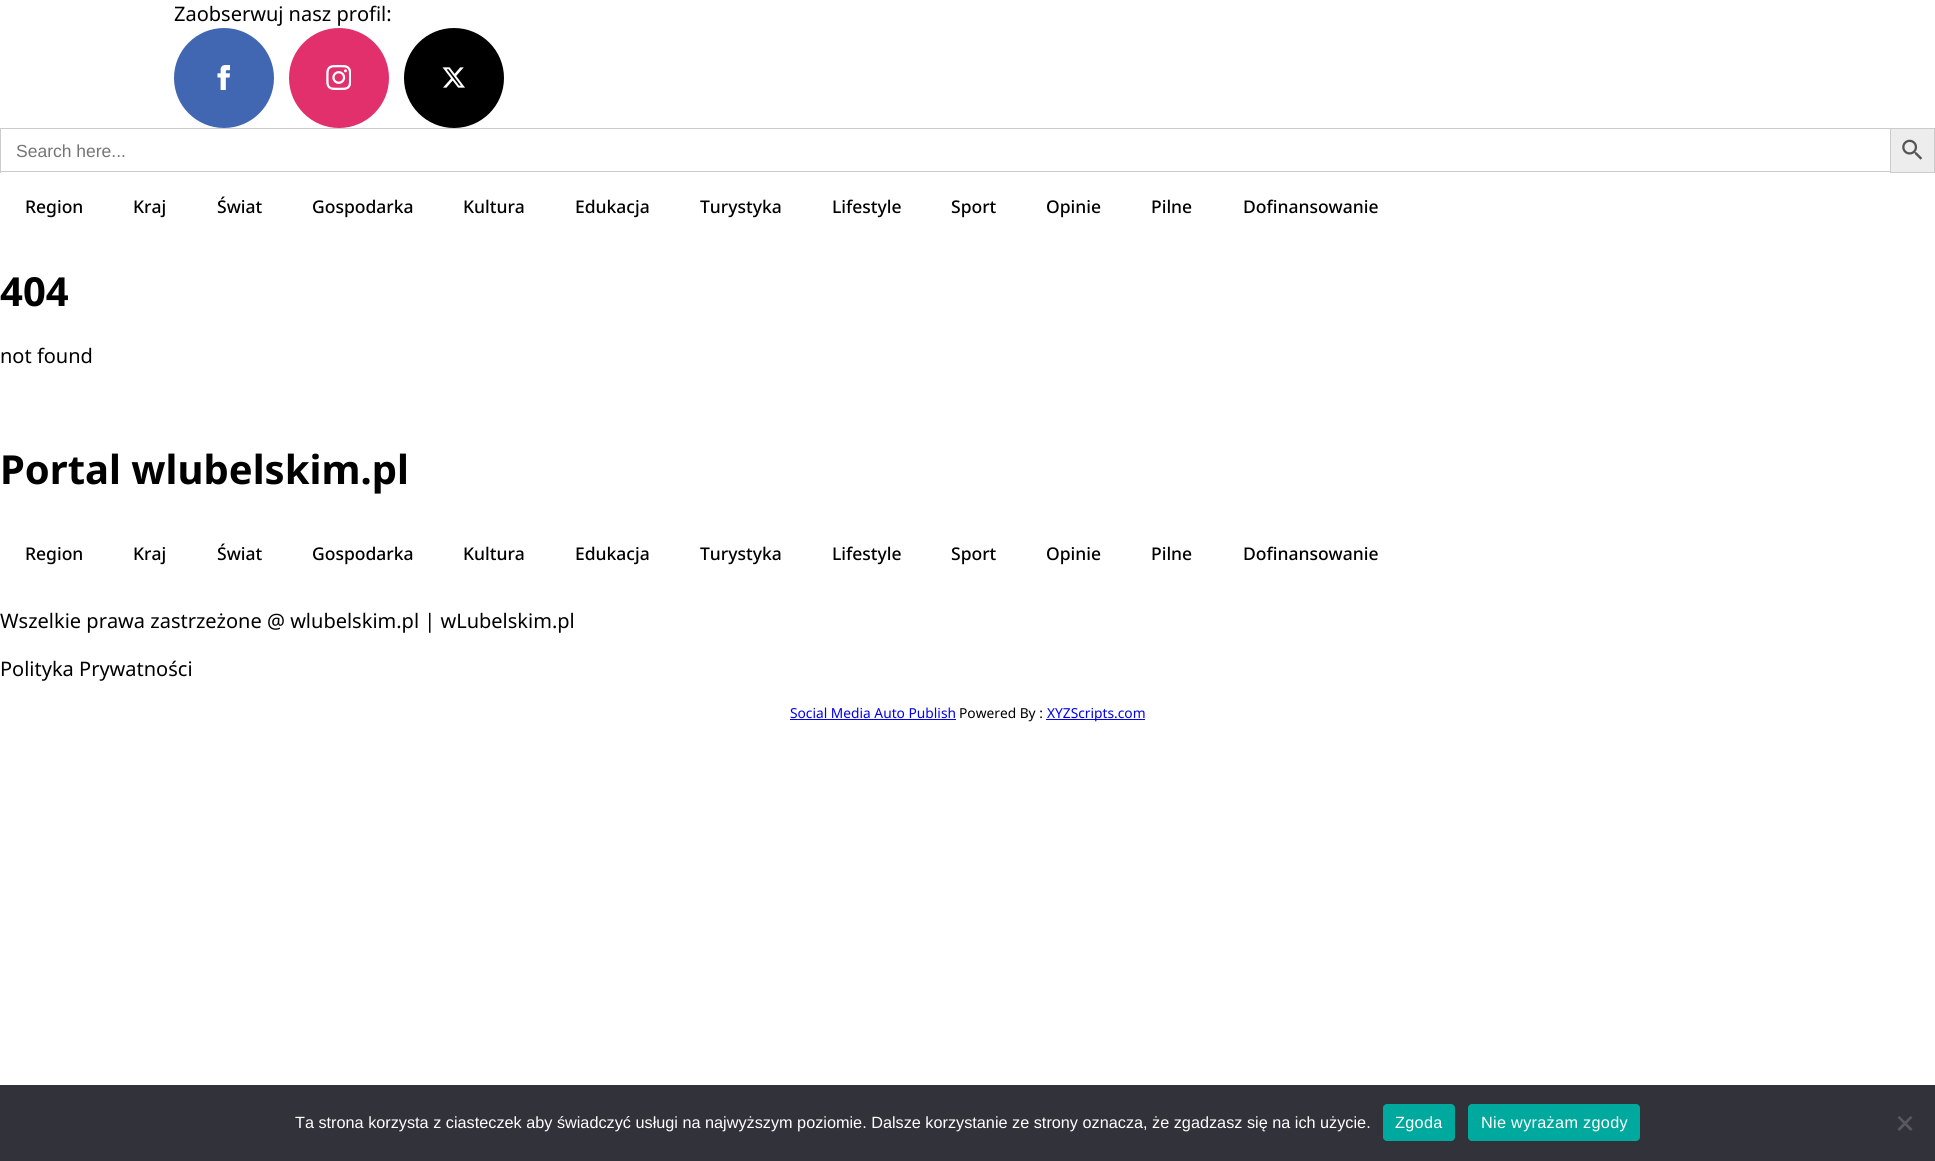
#include <cairo/cairo.h>
#include <math.h>
#include <stddef.h>

static cairo_t *cr;

static void use_color(int r, int g, int b) {
  cairo_set_source_rgb(cr, r / 255.0, g / 255.0, b / 255.0);
}

static void text(double x, double y, const char *s, const char *family, double size, int italic, int bold, int r, int g, int b) {
  cairo_select_font_face(cr, family, italic ? CAIRO_FONT_SLANT_ITALIC : CAIRO_FONT_SLANT_NORMAL,
    bold ? CAIRO_FONT_WEIGHT_BOLD : CAIRO_FONT_WEIGHT_NORMAL);
  cairo_set_font_size(cr, size);
  use_color(r, g, b);
  cairo_move_to(cr, x, y);
  cairo_show_text(cr, s);
}

static void spaced_text(double x, double y, const char *s, double letter, double word) {
  cairo_move_to(cr, x, y);
  while (*s) {
    char ch[5] = {0};
    int n = 0;
    do ch[n++] = *s++; while ((*s & 0xC0) == 0x80);
    cairo_show_text(cr, ch);
    cairo_rel_move_to(cr, letter + word * (*ch == ' '), 0);
  }
}

static void box(double x, double y, double w, double h, int r, int g, int b) {
  use_color(r, g, b);
  cairo_rectangle(cr, x, y, w, h);
  cairo_fill(cr);
}

static void round_rect(double x, double y, double w, double h, double r) {
  cairo_new_sub_path(cr);
  cairo_arc(cr, x + w - r, y + h - r, r, 0, M_PI / 2);
  cairo_arc(cr, x + r, y + h - r, r, M_PI / 2, M_PI);
  cairo_arc(cr, x + r, y + r, r, M_PI, 1.5 * M_PI);
  cairo_arc(cr, x + w - r, y + r, r, 1.5 * M_PI, 2 * M_PI);
  cairo_close_path(cr);
}

static void picture(const char *path, double x, double y, double w, double h) {
  cairo_surface_t *image = cairo_image_surface_create_from_png(path);
  cairo_save(cr);
  cairo_set_source_surface(cr, image, x, y);
  cairo_rectangle(cr, x, y, w, h);
  cairo_fill(cr);
  cairo_restore(cr);
  cairo_surface_destroy(image);
}

static void draw(void) {
  use_color(255, 255, 255);
  cairo_paint(cr);
  use_color(66, 103, 178);
  cairo_arc(cr, 224, 78, 50, 0, 2 * M_PI);
  cairo_fill(cr);
  picture("img_01.png", 217, 65, 13, 25);
  use_color(225, 48, 108);
  cairo_arc(cr, 339, 78, 50, 0, 2 * M_PI);
  cairo_fill(cr);
  picture("img_02.png", 326, 65, 25, 25);
  use_color(0, 0, 0);
  cairo_arc(cr, 454, 78, 50, 0, 2 * M_PI);
  cairo_fill(cr);
  picture("img_03.png", 442, 67, 23, 21);
  box(0, 128, 1890, 1, 204, 204, 204);
  box(0, 171, 1890, 1, 204, 204, 204);
  box(0, 128, 1, 45, 204, 204, 204);
  use_color(237, 237, 237);
  cairo_rectangle(cr, 1890.5, 128.5, 44, 44);
  cairo_fill_preserve(cr);
  use_color(204, 204, 204);
  cairo_set_line_width(cr, 1);
  cairo_stroke(cr);
  picture("img_04.png", 1902, 139, 21, 21);
  box(790, 719, 166, 1, 0, 0, 238);
  box(1046, 719, 99, 1, 0, 0, 238);
  box(0, 1085, 1935, 76, 50, 50, 58);
  use_color(0, 169, 157);
  round_rect(1383, 1104, 72, 37, 4);
  cairo_fill(cr);
  round_rect(1468, 1104, 172, 37, 4);
  cairo_fill(cr);
  use_color(89, 89, 93);
  cairo_new_path(cr);
  cairo_move_to(cr, 1910.5, 1116);
  cairo_line_to(cr, 1912.5, 1117.5);
  cairo_line_to(cr, 1899.5, 1131);
  cairo_line_to(cr, 1897.5, 1129);
  cairo_close_path(cr);
  cairo_fill(cr);
  cairo_new_path(cr);
  cairo_move_to(cr, 1897.5, 1117.5);
  cairo_line_to(cr, 1899.5, 1116);
  cairo_line_to(cr, 1912.5, 1129);
  cairo_line_to(cr, 1910.5, 1131);
  cairo_close_path(cr);
  cairo_fill(cr);
  text(174, 21, "Zaobserwuj nasz profil:", "Noto Sans", 20, 0, 0, 0, 0, 0);
  text(16, 157, "Search here...", "Liberation Sans", 17.5, 0, 0, 117, 117, 117);
  text(25, 213, "Region", "Noto Sans Medium", 17.5, 0, 0, 0, 0, 0);
  text(133, 213, "Kraj", "Noto Sans Medium", 17.5, 0, 0, 0, 0, 0);
  text(217, 213, "Świat", "Noto Sans Medium", 17.5, 0, 0, 0, 0, 0);
  text(312, 213, "Gospodarka", "Noto Sans Medium", 17.5, 0, 0, 0, 0, 0);
  text(463, 213, "Kultura", "Noto Sans Medium", 17.5, 0, 0, 0, 0, 0);
  text(575, 213, "Edukacja", "Noto Sans Medium", 17.5, 0, 0, 0, 0, 0);
  text(700, 213, "Turystyka", "Noto Sans Medium", 17.5, 0, 0, 0, 0, 0);
  text(832, 213, "Lifestyle", "Noto Sans Medium", 17.5, 0, 0, 0, 0, 0);
  text(951, 213, "Sport", "Noto Sans Medium", 17.5, 0, 0, 0, 0, 0);
  text(1046, 213, "Opinie", "Noto Sans Medium", 17.5, 0, 0, 0, 0, 0);
  text(1151, 213, "Pilne", "Noto Sans Medium", 17.5, 0, 0, 0, 0, 0);
  text(1243, 213, "Dofinansowanie", "Noto Sans Medium", 17.5, 0, 0, 0, 0, 0);
  text(0, 306, "404", "Noto Sans", 40, 0, 1, 0, 0, 0);
  text(0, 363, "not found", "Noto Sans", 20, 0, 0, 0, 0, 0);
  text(0, 484, "Portal wlubelskim.pl", "Noto Sans", 40, 0, 1, 0, 0, 0);
  text(25, 560, "Region", "Noto Sans Medium", 17.5, 0, 0, 0, 0, 0);
  text(133, 560, "Kraj", "Noto Sans Medium", 17.5, 0, 0, 0, 0, 0);
  text(217, 560, "Świat", "Noto Sans Medium", 17.5, 0, 0, 0, 0, 0);
  text(312, 560, "Gospodarka", "Noto Sans Medium", 17.5, 0, 0, 0, 0, 0);
  text(463, 560, "Kultura", "Noto Sans Medium", 17.5, 0, 0, 0, 0, 0);
  text(575, 560, "Edukacja", "Noto Sans Medium", 17.5, 0, 0, 0, 0, 0);
  text(700, 560, "Turystyka", "Noto Sans Medium", 17.5, 0, 0, 0, 0, 0);
  text(832, 560, "Lifestyle", "Noto Sans Medium", 17.5, 0, 0, 0, 0, 0);
  text(951, 560, "Sport", "Noto Sans Medium", 17.5, 0, 0, 0, 0, 0);
  text(1046, 560, "Opinie", "Noto Sans Medium", 17.5, 0, 0, 0, 0, 0);
  text(1151, 560, "Pilne", "Noto Sans Medium", 17.5, 0, 0, 0, 0, 0);
  text(1243, 560, "Dofinansowanie", "Noto Sans Medium", 17.5, 0, 0, 0, 0, 0);
  text(0, 628, "Wszelkie prawa zastrzeżone @ wlubelskim.pl | wLubelskim.pl", "Noto Sans", 20, 0, 0, 0, 0, 0);
  text(0, 676, "Polityka Prywatności", "Noto Sans", 20, 0, 0, 0, 0, 0);
  text(790, 718, "Social Media Auto Publish", "Noto Sans", 13.75, 0, 0, 0, 0, 238);
  text(959, 718, "Powered By :", "Noto Sans", 13.75, 0, 0, 0, 0, 0);
  text(1047, 718, "XYZScripts.com", "Noto Sans", 13.75, 0, 0, 0, 0, 238);
  text(295, 1128, "Ta strona korzysta z ciasteczek aby świadczyć usługi na najwyższym poziomie. Dalsze korzystanie ze strony oznacza, że zgadzasz się na ich użycie.", "Liberation Sans", 16.25, 0, 0, 255, 255, 255);
  spaced_text(1395, 1128, "Zgoda", 0.3, 0);
  spaced_text(1481, 1128, "Nie wyrażam zgody", 0.3, 0);
}

int main(void) {
  cairo_surface_t *surface = cairo_image_surface_create(CAIRO_FORMAT_RGB24, 1935, 1161);
  cr = cairo_create(surface);
  cairo_font_options_t *options = cairo_font_options_create();
  cairo_font_options_set_hint_metrics(options, CAIRO_HINT_METRICS_OFF);
  cairo_font_options_set_hint_style(options, CAIRO_HINT_STYLE_NONE);
  cairo_set_font_options(cr, options);
  cairo_set_miter_limit(cr, 4);
  draw();
  cairo_surface_write_to_png(surface, "out.png");
  cairo_font_options_destroy(options);
  cairo_destroy(cr);
  cairo_surface_destroy(surface);
  return 0;
}
